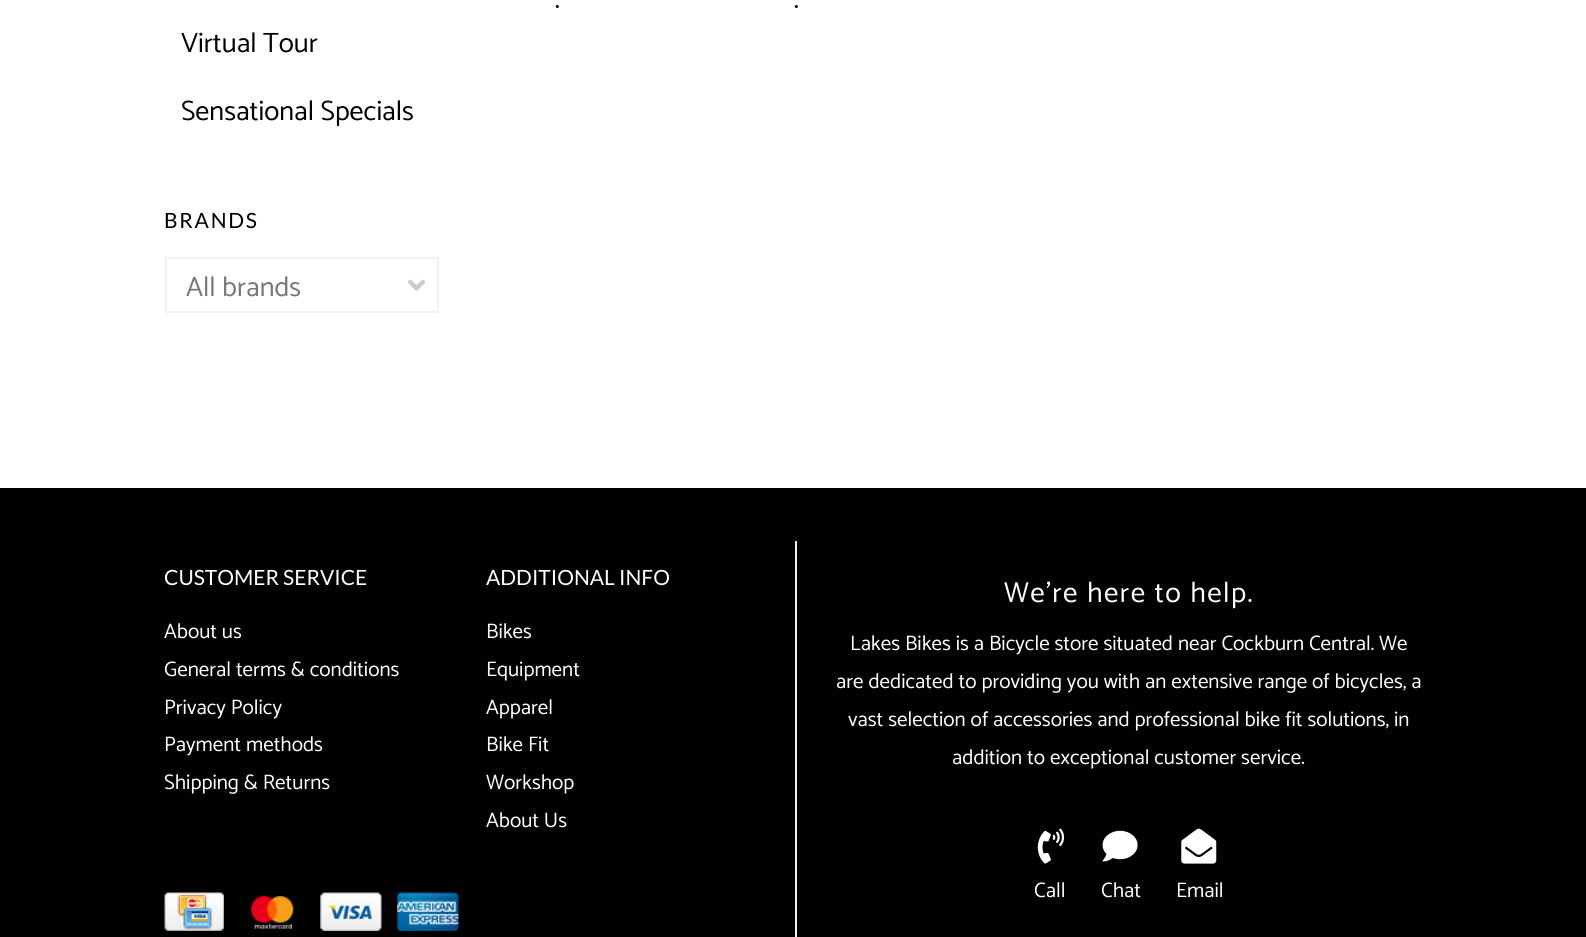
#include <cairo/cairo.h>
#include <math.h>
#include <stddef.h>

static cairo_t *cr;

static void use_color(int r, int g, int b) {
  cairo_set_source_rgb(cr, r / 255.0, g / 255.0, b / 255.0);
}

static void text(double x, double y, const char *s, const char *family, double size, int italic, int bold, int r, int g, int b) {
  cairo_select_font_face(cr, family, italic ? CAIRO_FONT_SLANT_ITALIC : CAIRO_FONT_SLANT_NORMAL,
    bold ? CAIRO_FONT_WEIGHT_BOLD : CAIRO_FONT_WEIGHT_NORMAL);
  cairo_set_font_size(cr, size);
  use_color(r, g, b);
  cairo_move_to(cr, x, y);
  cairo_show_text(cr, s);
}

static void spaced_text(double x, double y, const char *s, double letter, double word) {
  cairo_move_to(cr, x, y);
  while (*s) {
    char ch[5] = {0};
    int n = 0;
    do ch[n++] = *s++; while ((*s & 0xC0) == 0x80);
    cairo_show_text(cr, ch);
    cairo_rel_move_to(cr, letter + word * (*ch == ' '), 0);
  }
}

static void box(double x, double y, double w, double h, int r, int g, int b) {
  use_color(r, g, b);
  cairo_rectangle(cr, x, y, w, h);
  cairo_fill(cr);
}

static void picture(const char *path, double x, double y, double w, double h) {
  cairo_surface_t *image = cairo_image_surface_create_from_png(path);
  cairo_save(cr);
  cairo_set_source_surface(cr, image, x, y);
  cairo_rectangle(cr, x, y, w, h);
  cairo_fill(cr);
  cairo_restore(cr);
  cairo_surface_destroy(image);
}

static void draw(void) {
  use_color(255, 255, 255);
  cairo_paint(cr);
  picture("img_01.png", 408, 279, 17, 12);
  cairo_rectangle(cr, 166, 258, 272, 54);
  use_color(242, 242, 242);
  cairo_stroke(cr);
  box(0, 488, 1586, 449, 1, 1, 1);
  picture("img_02.png", 164, 892, 60, 39);
  picture("img_03.png", 251, 896, 43, 33);
  picture("img_04.png", 320, 892, 62, 39);
  picture("img_05.png", 397, 892, 62, 39);
  box(795, 541, 2, 396, 242, 242, 242);
  picture("img_06.png", 1037, 828, 28, 36);
  picture("img_07.png", 1102, 830, 36, 32);
  picture("img_08.png", 1181, 828, 36, 36);
  text(555, 8, ".", "Catamaran", 28, 0, 0, 0, 0, 0);
  text(794, 8, ".", "Catamaran", 28, 0, 0, 0, 0, 0);
  text(181, 52, "Virtual Tour", "Catamaran", 28, 0, 0, 0, 0, 0);
  text(181, 120, "Sensational Specials", "Catamaran", 28, 0, 0, 0, 0, 0);
  cairo_select_font_face(cr, "Lato", CAIRO_FONT_SLANT_NORMAL, CAIRO_FONT_WEIGHT_NORMAL);
  cairo_set_font_size(cr, 21);
  spaced_text(164, 228, "BRANDS", 1.75, 0);
  text(186, 296, "All brands", "Catamaran", 28, 0, 0, 119, 119, 119);
  text(164, 585, "CUSTOMER SERVICE", "Lato", 21, 0, 0, 255, 255, 255);
  text(164, 638, "About us", "Catamaran", 21, 0, 0, 255, 255, 255);
  text(164, 676, "General terms & conditions", "Catamaran", 21, 0, 0, 255, 255, 255);
  text(164, 714, "Privacy Policy", "Catamaran", 21, 0, 0, 255, 255, 255);
  text(164, 751, "Payment methods", "Catamaran", 21, 0, 0, 255, 255, 255);
  text(164, 789, "Shipping & Returns", "Catamaran", 21, 0, 0, 255, 255, 255);
  text(486, 585, "ADDITIONAL INFO", "Lato", 21, 0, 0, 255, 255, 255);
  text(486, 638, "Bikes", "Catamaran", 21, 0, 0, 255, 255, 255);
  text(486, 676, "Equipment", "Catamaran", 21, 0, 0, 255, 255, 255);
  text(486, 714, "Apparel", "Catamaran", 21, 0, 0, 255, 255, 255);
  text(486, 751, "Bike Fit", "Catamaran", 21, 0, 0, 255, 255, 255);
  text(486, 789, "Workshop", "Catamaran", 21, 0, 0, 255, 255, 255);
  text(486, 827, "About Us", "Catamaran", 21, 0, 0, 255, 255, 255);
  cairo_set_font_size(cr, 28.9);
  spaced_text(1004, 602, "We're here to help.", 1.4, 0);
  text(850, 650, "Lakes Bikes is a Bicycle store situated near Cockburn Central. We", "Catamaran", 21, 0, 0, 255, 255, 255);
  text(836, 688, "are dedicated to providing you with an extensive range of bicycles, a", "Catamaran", 21, 0, 0, 255, 255, 255);
  text(848, 726, "vast selection of accessories and professional bike fit solutions, in", "Catamaran", 21, 0, 0, 255, 255, 255);
  text(952, 764, "addition to exceptional customer service.", "Catamaran", 21, 0, 0, 255, 255, 255);
  text(1034, 897, "Call", "Catamaran", 21, 0, 0, 255, 255, 255);
  text(1101, 897, "Chat", "Catamaran", 21, 0, 0, 255, 255, 255);
  text(1176, 897, "Email", "Catamaran", 21, 0, 0, 255, 255, 255);
}

int main(void) {
  cairo_surface_t *surface = cairo_image_surface_create(CAIRO_FORMAT_RGB24, 1586, 937);
  cr = cairo_create(surface);
  cairo_font_options_t *options = cairo_font_options_create();
  cairo_font_options_set_hint_metrics(options, CAIRO_HINT_METRICS_OFF);
  cairo_font_options_set_hint_style(options, CAIRO_HINT_STYLE_NONE);
  cairo_set_font_options(cr, options);
  cairo_set_miter_limit(cr, 4);
  draw();
  cairo_surface_write_to_png(surface, "out.png");
  cairo_font_options_destroy(options);
  cairo_destroy(cr);
  cairo_surface_destroy(surface);
  return 0;
}
